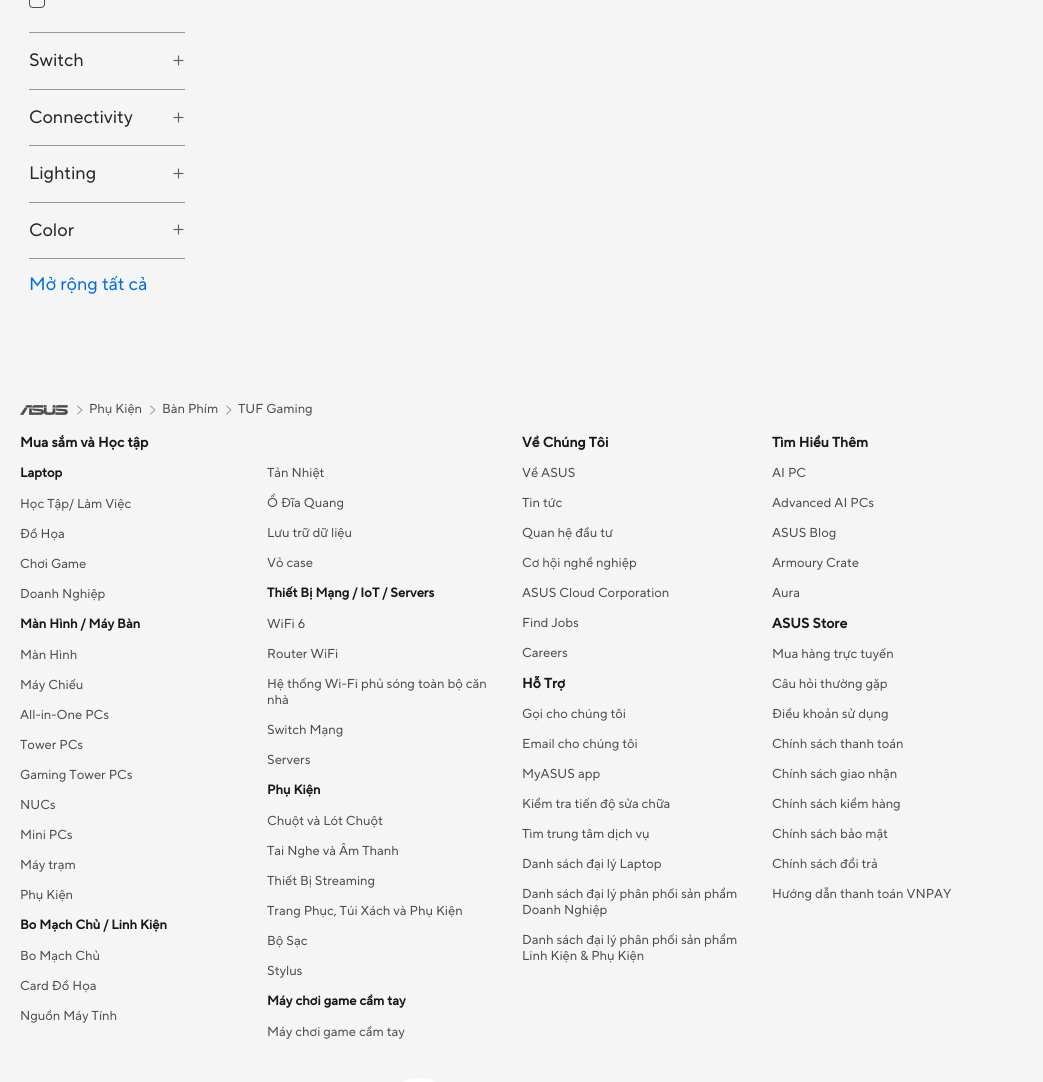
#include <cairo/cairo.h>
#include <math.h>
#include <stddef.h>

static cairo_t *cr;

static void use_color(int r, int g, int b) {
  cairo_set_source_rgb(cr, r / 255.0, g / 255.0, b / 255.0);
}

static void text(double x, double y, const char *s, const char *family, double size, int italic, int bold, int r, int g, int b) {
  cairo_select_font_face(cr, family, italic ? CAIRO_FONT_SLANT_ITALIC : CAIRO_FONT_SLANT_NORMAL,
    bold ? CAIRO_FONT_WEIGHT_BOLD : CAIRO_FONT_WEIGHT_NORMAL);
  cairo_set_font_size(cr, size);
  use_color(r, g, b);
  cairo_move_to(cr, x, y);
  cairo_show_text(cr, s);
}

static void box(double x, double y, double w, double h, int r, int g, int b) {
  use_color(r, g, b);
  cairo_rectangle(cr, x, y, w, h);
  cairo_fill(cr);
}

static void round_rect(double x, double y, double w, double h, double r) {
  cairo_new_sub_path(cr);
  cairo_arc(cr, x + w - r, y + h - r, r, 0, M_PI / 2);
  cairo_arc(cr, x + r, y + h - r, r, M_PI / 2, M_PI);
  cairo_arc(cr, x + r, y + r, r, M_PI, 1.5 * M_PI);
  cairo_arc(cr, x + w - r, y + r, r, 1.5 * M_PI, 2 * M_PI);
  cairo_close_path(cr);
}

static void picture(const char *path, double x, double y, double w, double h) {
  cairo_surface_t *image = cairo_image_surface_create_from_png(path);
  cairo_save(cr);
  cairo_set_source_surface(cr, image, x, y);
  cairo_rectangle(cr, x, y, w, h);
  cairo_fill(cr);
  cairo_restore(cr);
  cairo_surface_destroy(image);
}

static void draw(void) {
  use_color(245, 245, 245);
  cairo_paint(cr);
  round_rect(29.5, -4.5, 15, 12, 3.5);
  use_color(77, 77, 77);
  cairo_set_line_width(cr, 1);
  cairo_stroke(cr);
  box(29, 32, 156, 1, 153, 153, 153);
  cairo_new_path(cr);
  cairo_move_to(cr, 174, 60.5);
  cairo_line_to(cr, 183, 60.5);
  cairo_move_to(cr, 178.5, 56);
  cairo_line_to(cr, 178.5, 65);
  use_color(102, 102, 102);
  cairo_set_line_width(cr, 1.2);
  cairo_set_line_cap(cr, CAIRO_LINE_CAP_ROUND);
  cairo_stroke(cr);
  box(29, 89, 156, 1, 153, 153, 153);
  cairo_new_path(cr);
  cairo_move_to(cr, 174, 117.5);
  cairo_line_to(cr, 183, 117.5);
  cairo_move_to(cr, 178.5, 113);
  cairo_line_to(cr, 178.5, 122);
  use_color(102, 102, 102);
  cairo_stroke(cr);
  box(29, 145, 156, 1, 153, 153, 153);
  cairo_new_path(cr);
  cairo_move_to(cr, 174, 173.5);
  cairo_line_to(cr, 183, 173.5);
  cairo_move_to(cr, 178.5, 169);
  cairo_line_to(cr, 178.5, 178);
  use_color(102, 102, 102);
  cairo_stroke(cr);
  box(29, 202, 156, 1, 153, 153, 153);
  cairo_new_path(cr);
  cairo_move_to(cr, 174, 229.5);
  cairo_line_to(cr, 183, 229.5);
  cairo_move_to(cr, 178.5, 225);
  cairo_line_to(cr, 178.5, 234);
  use_color(102, 102, 102);
  cairo_stroke(cr);
  box(29, 258, 156, 1, 153, 153, 153);
  picture("img_01.png", 20, 405, 48, 10);
  cairo_new_path(cr);
  cairo_move_to(cr, 77.5, 406);
  cairo_line_to(cr, 82, 410);
  cairo_line_to(cr, 77.5, 414);
  cairo_set_line_width(cr, 1);
  cairo_set_line_join(cr, CAIRO_LINE_JOIN_ROUND);
  cairo_stroke(cr);
  cairo_new_path(cr);
  cairo_move_to(cr, 150.5, 406);
  cairo_line_to(cr, 155, 410);
  cairo_line_to(cr, 150.5, 414);
  cairo_stroke(cr);
  cairo_new_path(cr);
  cairo_move_to(cr, 226.5, 406);
  cairo_line_to(cr, 231, 410);
  cairo_line_to(cr, 226.5, 414);
  cairo_stroke(cr);
  picture("img_02.png", 404, 1078, 31, 4);
  text(29, 66, "Switch", "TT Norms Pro", 18, 0, 0, 38, 38, 38);
  text(29, 123, "Connectivity", "TT Norms Pro", 18, 0, 0, 38, 38, 38);
  text(29, 179, "Lighting", "TT Norms Pro", 18, 0, 0, 38, 38, 38);
  text(29, 236, "Color", "TT Norms Pro", 18, 0, 0, 38, 38, 38);
  text(29, 290, "Mở rộng tất cả", "TT Norms Pro", 18, 0, 0, 0, 108, 225);
  text(89, 413, "Phụ Kiện", "TT Norms Pro", 13, 0, 0, 77, 77, 77);
  text(162, 413, "Bàn Phím", "TT Norms Pro", 13, 0, 0, 77, 77, 77);
  text(238, 413, "TUF Gaming", "TT Norms Pro", 13, 0, 0, 77, 77, 77);
  text(20, 447, "Mua sắm và Học tập", "TT Norms Pro", 14, 0, 1, 24, 24, 24);
  text(20, 477, "Laptop", "TT Norms Pro", 13, 0, 1, 24, 24, 24);
  text(267, 477, "Tản Nhiệt", "TT Norms Pro", 13, 0, 0, 77, 77, 77);
  text(20, 508, "Học Tập/ Làm Việc", "TT Norms Pro", 13, 0, 0, 77, 77, 77);
  text(267, 507, "Ổ Đĩa Quang", "TT Norms Pro", 13, 0, 0, 77, 77, 77);
  text(20, 538, "Đồ Họa", "TT Norms Pro", 13, 0, 0, 77, 77, 77);
  text(267, 537, "Lưu trữ dữ liệu", "TT Norms Pro", 13, 0, 0, 77, 77, 77);
  text(20, 568, "Chơi Game", "TT Norms Pro", 13, 0, 0, 77, 77, 77);
  text(267, 567, "Vỏ case", "TT Norms Pro", 13, 0, 0, 77, 77, 77);
  text(20, 598, "Doanh Nghiệp", "TT Norms Pro", 13, 0, 0, 77, 77, 77);
  text(267, 597, "Thiết Bị Mạng / IoT / Servers", "TT Norms Pro", 13, 0, 1, 24, 24, 24);
  text(20, 628, "Màn Hình / Máy Bàn", "TT Norms Pro", 13, 0, 1, 24, 24, 24);
  text(267, 628, "WiFi 6", "TT Norms Pro", 13, 0, 0, 77, 77, 77);
  text(20, 659, "Màn Hình", "TT Norms Pro", 13, 0, 0, 77, 77, 77);
  text(267, 658, "Router WiFi", "TT Norms Pro", 13, 0, 0, 77, 77, 77);
  text(20, 689, "Máy Chiếu", "TT Norms Pro", 13, 0, 0, 77, 77, 77);
  text(267, 688, "Hệ thống Wi-Fi phủ sóng toàn bộ căn", "TT Norms Pro", 13, 0, 0, 77, 77, 77);
  text(267, 704, "nhà", "TT Norms Pro", 13, 0, 0, 77, 77, 77);
  text(20, 719, "All-in-One PCs", "TT Norms Pro", 13, 0, 0, 77, 77, 77);
  text(267, 734, "Switch Mạng", "TT Norms Pro", 13, 0, 0, 77, 77, 77);
  text(20, 749, "Tower PCs", "TT Norms Pro", 13, 0, 0, 77, 77, 77);
  text(267, 764, "Servers", "TT Norms Pro", 13, 0, 0, 77, 77, 77);
  text(20, 779, "Gaming Tower PCs", "TT Norms Pro", 13, 0, 0, 77, 77, 77);
  text(267, 794, "Phụ Kiện", "TT Norms Pro", 13, 0, 1, 24, 24, 24);
  text(20, 809, "NUCs", "TT Norms Pro", 13, 0, 0, 77, 77, 77);
  text(267, 825, "Chuột và Lót Chuột", "TT Norms Pro", 13, 0, 0, 77, 77, 77);
  text(20, 839, "Mini PCs", "TT Norms Pro", 13, 0, 0, 77, 77, 77);
  text(267, 855, "Tai Nghe và Âm Thanh", "TT Norms Pro", 13, 0, 0, 77, 77, 77);
  text(20, 869, "Máy trạm", "TT Norms Pro", 13, 0, 0, 77, 77, 77);
  text(267, 885, "Thiết Bị Streaming", "TT Norms Pro", 13, 0, 0, 77, 77, 77);
  text(20, 899, "Phụ Kiện", "TT Norms Pro", 13, 0, 0, 77, 77, 77);
  text(267, 915, "Trang Phục, Túi Xách và Phụ Kiện", "TT Norms Pro", 13, 0, 0, 77, 77, 77);
  text(20, 929, "Bo Mạch Chủ / Linh Kiện", "TT Norms Pro", 13, 0, 1, 24, 24, 24);
  text(267, 945, "Bộ Sạc", "TT Norms Pro", 13, 0, 0, 77, 77, 77);
  text(20, 960, "Bo Mạch Chủ", "TT Norms Pro", 13, 0, 0, 77, 77, 77);
  text(267, 975, "Stylus", "TT Norms Pro", 13, 0, 0, 77, 77, 77);
  text(20, 990, "Card Đồ Họa", "TT Norms Pro", 13, 0, 0, 77, 77, 77);
  text(267, 1005, "Máy chơi game cầm tay", "TT Norms Pro", 13, 0, 1, 24, 24, 24);
  text(20, 1020, "Nguồn Máy Tính", "TT Norms Pro", 13, 0, 0, 77, 77, 77);
  text(267, 1036, "Máy chơi game cầm tay", "TT Norms Pro", 13, 0, 0, 77, 77, 77);
  text(522, 447, "Về Chúng Tôi", "TT Norms Pro", 14, 0, 1, 24, 24, 24);
  text(522, 477, "Về ASUS", "TT Norms Pro", 13, 0, 0, 77, 77, 77);
  text(522, 507, "Tin tức", "TT Norms Pro", 13, 0, 0, 77, 77, 77);
  text(522, 537, "Quan hệ đầu tư", "TT Norms Pro", 13, 0, 0, 77, 77, 77);
  text(522, 567, "Cơ hội nghề nghiệp", "TT Norms Pro", 13, 0, 0, 77, 77, 77);
  text(522, 597, "ASUS Cloud Corporation", "TT Norms Pro", 13, 0, 0, 77, 77, 77);
  text(522, 627, "Find Jobs", "TT Norms Pro", 13, 0, 0, 77, 77, 77);
  text(522, 657, "Careers", "TT Norms Pro", 13, 0, 0, 77, 77, 77);
  text(522, 688, "Hỗ Trợ", "TT Norms Pro", 14, 0, 1, 24, 24, 24);
  text(522, 718, "Gọi cho chúng tôi", "TT Norms Pro", 13, 0, 0, 77, 77, 77);
  text(522, 748, "Email cho chúng tôi", "TT Norms Pro", 13, 0, 0, 77, 77, 77);
  text(522, 778, "MyASUS app", "TT Norms Pro", 13, 0, 0, 77, 77, 77);
  text(522, 808, "Kiểm tra tiến độ sửa chữa", "TT Norms Pro", 13, 0, 0, 77, 77, 77);
  text(522, 838, "Tìm trung tâm dịch vụ", "TT Norms Pro", 13, 0, 0, 77, 77, 77);
  text(522, 868, "Danh sách đại lý Laptop", "TT Norms Pro", 13, 0, 0, 77, 77, 77);
  text(522, 898, "Danh sách đại lý phân phối sản phẩm", "TT Norms Pro", 13, 0, 0, 77, 77, 77);
  text(522, 914, "Doanh Nghiệp", "TT Norms Pro", 13, 0, 0, 77, 77, 77);
  text(522, 944, "Danh sách đại lý phân phối sản phẩm", "TT Norms Pro", 13, 0, 0, 77, 77, 77);
  text(522, 960, "Linh Kiện & Phụ Kiện", "TT Norms Pro", 13, 0, 0, 77, 77, 77);
  text(772, 447, "Tìm Hiểu Thêm", "TT Norms Pro", 14, 0, 1, 24, 24, 24);
  text(772, 477, "AI PC", "TT Norms Pro", 13, 0, 0, 77, 77, 77);
  text(772, 507, "Advanced AI PCs", "TT Norms Pro", 13, 0, 0, 77, 77, 77);
  text(772, 537, "ASUS Blog", "TT Norms Pro", 13, 0, 0, 77, 77, 77);
  text(772, 567, "Armoury Crate", "TT Norms Pro", 13, 0, 0, 77, 77, 77);
  text(772, 597, "Aura", "TT Norms Pro", 13, 0, 0, 77, 77, 77);
  text(772, 628, "ASUS Store", "TT Norms Pro", 14, 0, 1, 24, 24, 24);
  text(772, 658, "Mua hàng trực tuyến", "TT Norms Pro", 13, 0, 0, 77, 77, 77);
  text(772, 688, "Câu hỏi thường gặp", "TT Norms Pro", 13, 0, 0, 77, 77, 77);
  text(772, 718, "Điều khoản sử dụng", "TT Norms Pro", 13, 0, 0, 77, 77, 77);
  text(772, 748, "Chính sách thanh toán", "TT Norms Pro", 13, 0, 0, 77, 77, 77);
  text(772, 778, "Chính sách giao nhận", "TT Norms Pro", 13, 0, 0, 77, 77, 77);
  text(772, 808, "Chính sách kiểm hàng", "TT Norms Pro", 13, 0, 0, 77, 77, 77);
  text(772, 838, "Chính sách bảo mật", "TT Norms Pro", 13, 0, 0, 77, 77, 77);
  text(772, 868, "Chính sách đổi trả", "TT Norms Pro", 13, 0, 0, 77, 77, 77);
  text(772, 898, "Hướng dẫn thanh toán VNPAY", "TT Norms Pro", 13, 0, 0, 77, 77, 77);
}

int main(void) {
  cairo_surface_t *surface = cairo_image_surface_create(CAIRO_FORMAT_RGB24, 1043, 1082);
  cr = cairo_create(surface);
  cairo_font_options_t *options = cairo_font_options_create();
  cairo_font_options_set_hint_metrics(options, CAIRO_HINT_METRICS_OFF);
  cairo_font_options_set_hint_style(options, CAIRO_HINT_STYLE_NONE);
  cairo_set_font_options(cr, options);
  cairo_set_miter_limit(cr, 4);
  draw();
  cairo_surface_write_to_png(surface, "out.png");
  cairo_font_options_destroy(options);
  cairo_destroy(cr);
  cairo_surface_destroy(surface);
  return 0;
}
